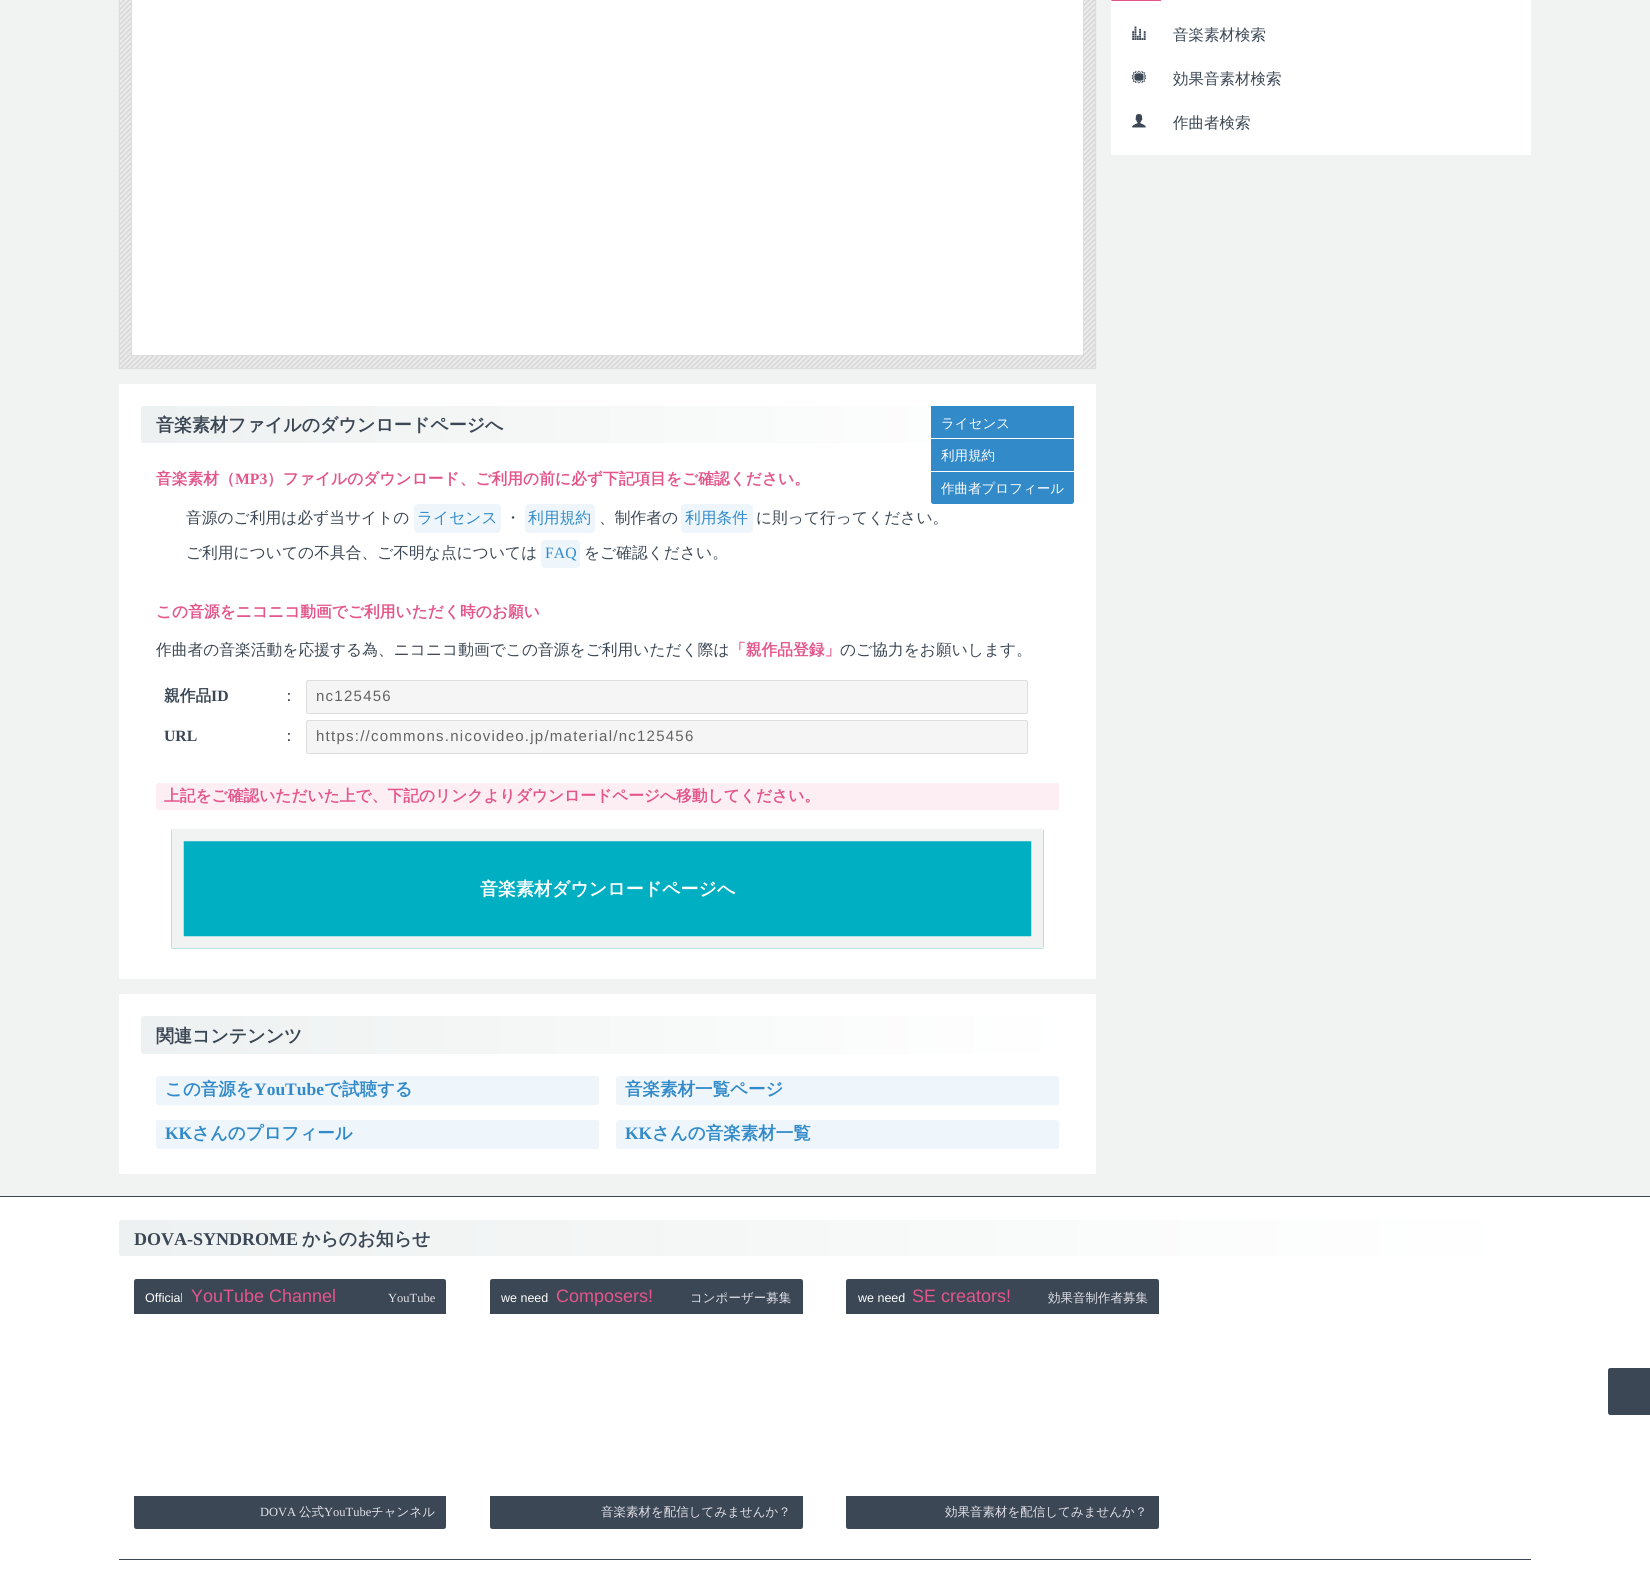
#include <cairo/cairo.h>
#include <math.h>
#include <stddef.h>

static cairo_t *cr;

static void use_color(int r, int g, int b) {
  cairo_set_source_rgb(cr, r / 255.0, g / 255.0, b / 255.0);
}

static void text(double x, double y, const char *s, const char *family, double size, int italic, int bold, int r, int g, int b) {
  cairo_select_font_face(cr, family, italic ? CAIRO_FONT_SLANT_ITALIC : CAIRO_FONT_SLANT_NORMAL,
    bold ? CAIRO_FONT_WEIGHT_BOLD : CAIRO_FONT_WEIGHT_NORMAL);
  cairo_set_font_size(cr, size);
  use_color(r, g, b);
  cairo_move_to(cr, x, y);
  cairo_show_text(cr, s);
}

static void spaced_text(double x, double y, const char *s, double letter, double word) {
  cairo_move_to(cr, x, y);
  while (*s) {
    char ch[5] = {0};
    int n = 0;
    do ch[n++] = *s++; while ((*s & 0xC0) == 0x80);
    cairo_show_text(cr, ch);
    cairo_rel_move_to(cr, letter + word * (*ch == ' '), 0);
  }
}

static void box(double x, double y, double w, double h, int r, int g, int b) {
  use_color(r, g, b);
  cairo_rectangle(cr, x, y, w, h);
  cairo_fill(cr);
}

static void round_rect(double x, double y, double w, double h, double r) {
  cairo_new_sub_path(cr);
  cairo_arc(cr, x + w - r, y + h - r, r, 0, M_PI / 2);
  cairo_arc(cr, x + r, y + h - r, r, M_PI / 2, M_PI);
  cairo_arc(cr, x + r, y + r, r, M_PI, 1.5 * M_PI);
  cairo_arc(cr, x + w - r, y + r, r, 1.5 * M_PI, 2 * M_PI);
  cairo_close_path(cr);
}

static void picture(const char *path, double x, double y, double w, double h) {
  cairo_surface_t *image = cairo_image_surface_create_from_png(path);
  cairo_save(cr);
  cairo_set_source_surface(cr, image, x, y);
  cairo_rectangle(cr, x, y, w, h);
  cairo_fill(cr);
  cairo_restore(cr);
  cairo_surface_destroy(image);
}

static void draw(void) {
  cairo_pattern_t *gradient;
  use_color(240, 243, 242);
  cairo_paint(cr);
  box(1111, 0, 420, 155, 255, 255, 255);
  picture("img_01.png", 1111, 0, 50, 1);
  picture("img_02.png", 1132, 26, 14, 14);
  picture("img_03.png", 1131, 70, 16, 14);
  picture("img_04.png", 1132, 114, 14, 14);
  picture("img_05.png", 118, 0, 979, 369);
  cairo_rectangle(cr, 119.5, -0.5, 976, 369);
  use_color(221, 221, 221);
  cairo_set_line_width(cr, 1);
  cairo_stroke(cr);
  use_color(255, 255, 255);
  cairo_rectangle(cr, 131.5, -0.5, 952, 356);
  cairo_fill_preserve(cr);
  use_color(221, 221, 221);
  cairo_stroke(cr);
  box(119, 384, 977, 595, 255, 255, 255);
  gradient = cairo_pattern_create_linear(141, 424, 1074, 424);
  cairo_pattern_add_color_stop_rgba(gradient, 0, 0.933, 0.945, 0.945, 1);
  cairo_pattern_add_color_stop_rgba(gradient, 1, 1, 1, 1, 1);
  cairo_set_source(cr, gradient);
  cairo_pattern_destroy(gradient);
  round_rect(141, 406, 933, 37, 2.5);
  cairo_fill(cr);
  box(931, 406, 143, 32, 50, 138, 201);
  box(931, 438, 6, 1, 255, 255, 255);
  box(931, 439, 143, 34, 50, 138, 201);
  box(931, 471, 143, 1, 255, 255, 255);
  use_color(50, 138, 201);
  cairo_new_path(cr);
  cairo_move_to(cr, 931, 473);
  cairo_line_to(cr, 1074, 473);
  cairo_line_to(cr, 1074, 501.5);
  cairo_curve_to(cr, 1074, 503, 1073, 504, 1071.5, 504);
  cairo_line_to(cr, 933.5, 504);
  cairo_curve_to(cr, 932, 504, 931, 503, 931, 501.5);
  cairo_close_path(cr);
  cairo_fill(cr);
  use_color(238, 246, 252);
  round_rect(414, 504, 87, 29, 4);
  cairo_fill(cr);
  round_rect(525, 504, 70, 29, 4);
  cairo_fill(cr);
  round_rect(681, 504, 72, 29, 4);
  cairo_fill(cr);
  round_rect(541, 540, 39, 28, 4);
  cairo_fill(cr);
  use_color(245, 245, 245);
  round_rect(306.5, 680.5, 721, 33, 2);
  cairo_fill_preserve(cr);
  use_color(221, 221, 221);
  cairo_stroke(cr);
  use_color(245, 245, 245);
  round_rect(306.5, 720.5, 721, 33, 2);
  cairo_fill_preserve(cr);
  use_color(221, 221, 221);
  cairo_stroke(cr);
  use_color(252, 238, 243);
  round_rect(156, 783, 903, 27, 2.5);
  cairo_fill(cr);
  use_color(0, 175, 193);
  round_rect(171, 829, 873, 120, 2.5);
  cairo_fill(cr);
  cairo_new_path(cr);
  cairo_move_to(cr, 177.5, 835);
  cairo_line_to(cr, 1037.5, 835);
  cairo_line_to(cr, 1037.5, 942.5);
  cairo_line_to(cr, 177.5, 942.5);
  cairo_close_path(cr);
  use_color(240, 243, 242);
  cairo_set_line_width(cr, 12.5);
  cairo_stroke(cr);
  box(119, 994, 977, 180, 255, 255, 255);
  gradient = cairo_pattern_create_linear(141, 1035, 1074, 1035);
  cairo_pattern_add_color_stop_rgba(gradient, 0, 0.933, 0.945, 0.945, 1);
  cairo_pattern_add_color_stop_rgba(gradient, 1, 1, 1, 1, 1);
  cairo_set_source(cr, gradient);
  cairo_pattern_destroy(gradient);
  round_rect(141, 1016, 933, 38, 2.5);
  cairo_fill(cr);
  use_color(238, 246, 252);
  round_rect(156, 1076, 443, 29, 2.5);
  cairo_fill(cr);
  round_rect(616, 1076, 443, 29, 2.5);
  cairo_fill(cr);
  round_rect(156, 1120, 443, 29, 2.5);
  cairo_fill(cr);
  round_rect(616, 1120, 443, 29, 2.5);
  cairo_fill(cr);
  box(0, 1197, 1650, 387, 255, 255, 255);
  box(0, 1196, 1650, 1, 59, 71, 84);
  gradient = cairo_pattern_create_linear(119, 1238, 1531, 1238);
  cairo_pattern_add_color_stop_rgba(gradient, 0, 0.933, 0.945, 0.945, 1);
  cairo_pattern_add_color_stop_rgba(gradient, 1, 1, 1, 1, 1);
  cairo_set_source(cr, gradient);
  cairo_pattern_destroy(gradient);
  round_rect(119, 1220, 1412, 36, 2.5);
  cairo_fill(cr);
  use_color(59, 71, 84);
  cairo_new_path(cr);
  cairo_move_to(cr, 136.5, 1279);
  cairo_line_to(cr, 443.5, 1279);
  cairo_curve_to(cr, 445, 1279, 446, 1280, 446, 1281.5);
  cairo_line_to(cr, 446, 1314);
  cairo_line_to(cr, 134, 1314);
  cairo_line_to(cr, 134, 1281.5);
  cairo_curve_to(cr, 134, 1280, 135, 1279, 136.5, 1279);
  cairo_close_path(cr);
  cairo_fill(cr);
  cairo_new_path(cr);
  cairo_move_to(cr, 134, 1496);
  cairo_line_to(cr, 446, 1496);
  cairo_line_to(cr, 446, 1526.5);
  cairo_curve_to(cr, 446, 1528, 445, 1529, 443.5, 1529);
  cairo_line_to(cr, 136.5, 1529);
  cairo_curve_to(cr, 135, 1529, 134, 1528, 134, 1526.5);
  cairo_close_path(cr);
  cairo_fill(cr);
  cairo_new_path(cr);
  cairo_move_to(cr, 492.5, 1279);
  cairo_line_to(cr, 800.5, 1279);
  cairo_curve_to(cr, 802, 1279, 803, 1280, 803, 1281.5);
  cairo_line_to(cr, 803, 1314);
  cairo_line_to(cr, 490, 1314);
  cairo_line_to(cr, 490, 1281.5);
  cairo_curve_to(cr, 490, 1280, 491, 1279, 492.5, 1279);
  cairo_close_path(cr);
  cairo_fill(cr);
  cairo_new_path(cr);
  cairo_move_to(cr, 490, 1496);
  cairo_line_to(cr, 803, 1496);
  cairo_line_to(cr, 803, 1526.5);
  cairo_curve_to(cr, 803, 1528, 802, 1529, 800.5, 1529);
  cairo_line_to(cr, 492.5, 1529);
  cairo_curve_to(cr, 491, 1529, 490, 1528, 490, 1526.5);
  cairo_close_path(cr);
  cairo_fill(cr);
  cairo_new_path(cr);
  cairo_move_to(cr, 848.5, 1279);
  cairo_line_to(cr, 1156.5, 1279);
  cairo_curve_to(cr, 1158, 1279, 1159, 1280, 1159, 1281.5);
  cairo_line_to(cr, 1159, 1314);
  cairo_line_to(cr, 846, 1314);
  cairo_line_to(cr, 846, 1281.5);
  cairo_curve_to(cr, 846, 1280, 847, 1279, 848.5, 1279);
  cairo_close_path(cr);
  cairo_fill(cr);
  cairo_new_path(cr);
  cairo_move_to(cr, 846, 1496);
  cairo_line_to(cr, 1159, 1496);
  cairo_line_to(cr, 1159, 1526.5);
  cairo_curve_to(cr, 1159, 1528, 1158, 1529, 1156.5, 1529);
  cairo_line_to(cr, 848.5, 1529);
  cairo_curve_to(cr, 847, 1529, 846, 1528, 846, 1526.5);
  cairo_close_path(cr);
  cairo_fill(cr);
  box(119, 1559, 1412, 1, 59, 71, 84);
  cairo_new_path(cr);
  cairo_move_to(cr, 1610.5, 1368);
  cairo_line_to(cr, 1650, 1368);
  cairo_line_to(cr, 1650, 1415);
  cairo_line_to(cr, 1610.5, 1415);
  cairo_curve_to(cr, 1609, 1415, 1608, 1414, 1608, 1412.5);
  cairo_line_to(cr, 1608, 1370.5);
  cairo_curve_to(cr, 1608, 1369, 1609, 1368, 1610.5, 1368);
  cairo_close_path(cr);
  cairo_fill(cr);
  text(1173, 40, "音楽素材検索", "WenQuanYi Zen Hei Medium", 15.5, 0, 0, 59, 71, 84);
  text(1173, 84, "効果音素材検索", "WenQuanYi Zen Hei Medium", 15.5, 0, 0, 59, 71, 84);
  text(1173, 128, "作曲者検索", "WenQuanYi Zen Hei Medium", 15.5, 0, 0, 59, 71, 84);
  text(156, 431, "音楽素材ファイルのダウンロードページへ", "WenQuanYi Zen Hei", 18, 0, 1, 59, 71, 84);
  text(941, 428, "ライセンス", "WenQuanYi Zen Hei Medium", 13.5, 0, 0, 255, 255, 255);
  text(941, 460, "利用規約", "WenQuanYi Zen Hei Medium", 13.5, 0, 0, 255, 255, 255);
  text(941, 493, "作曲者プロフィール", "WenQuanYi Zen Hei Medium", 13.5, 0, 0, 255, 255, 255);
  text(156, 484, "音楽素材（", "WenQuanYi Zen Hei", 15.75, 0, 1, 227, 85, 139);
  text(235, 484, "MP3", "Liberation Serif", 15.75, 0, 1, 227, 85, 139);
  text(267, 484, "）ファイルのダウンロード、ご利用の前に必ず下記項目をご確認ください。", "WenQuanYi Zen Hei", 15.75, 0, 1, 227, 85, 139);
  text(186, 523, "音源のご利用は必ず当サイトの", "WenQuanYi Zen Hei Medium", 15.75, 0, 0, 59, 71, 84);
  text(417, 523, "ライセンス", "WenQuanYi Zen Hei Medium", 15.75, 0, 0, 50, 138, 201);
  text(505, 523, "・", "WenQuanYi Zen Hei Medium", 15.75, 0, 0, 59, 71, 84);
  text(528, 523, "利用規約", "WenQuanYi Zen Hei Medium", 15.75, 0, 0, 50, 138, 201);
  text(599, 523, "、制作者の", "WenQuanYi Zen Hei Medium", 15.75, 0, 0, 59, 71, 84);
  text(685, 523, "利用条件", "WenQuanYi Zen Hei Medium", 15.75, 0, 0, 50, 138, 201);
  text(756, 523, "に則って行ってください。", "WenQuanYi Zen Hei Medium", 15.75, 0, 0, 59, 71, 84);
  text(186, 558, "ご利用についての不具合、ご不明な点については", "WenQuanYi Zen Hei Medium", 15.75, 0, 0, 59, 71, 84);
  text(545, 558, "FAQ", "Liberation Serif", 15.75, 0, 0, 50, 138, 201);
  text(584, 558, "をご確認ください。", "WenQuanYi Zen Hei Medium", 15.75, 0, 0, 59, 71, 84);
  text(156, 617, "この音源をニコニコ動画でご利用いただく時のお願い", "WenQuanYi Zen Hei", 15.75, 0, 1, 227, 85, 139);
  text(156, 655, "作曲者の音楽活動を応援する為、ニコニコ動画でこの音源をご利用いただく際は", "WenQuanYi Zen Hei Medium", 15.75, 0, 0, 59, 71, 84);
  text(730, 655, "「親作品登録」", "WenQuanYi Zen Hei", 15.75, 0, 1, 227, 85, 139);
  text(840, 655, "のご協力をお願いします。", "WenQuanYi Zen Hei Medium", 15.75, 0, 0, 59, 71, 84);
  text(164, 701, "親作品", "WenQuanYi Zen Hei", 15.75, 0, 1, 59, 71, 84);
  text(211, 701, "ID", "Liberation Serif", 15.75, 0, 1, 59, 71, 84);
  text(281, 701, "：", "WenQuanYi Zen Hei Medium", 15.75, 0, 0, 59, 71, 84);
  cairo_select_font_face(cr, "Liberation Sans", CAIRO_FONT_SLANT_NORMAL, CAIRO_FONT_WEIGHT_NORMAL);
  cairo_set_font_size(cr, 15);
  use_color(99, 99, 99);
  spaced_text(316, 701, "nc125456", 1.25, 0);
  text(164, 741, "URL", "Liberation Serif", 15.75, 0, 1, 59, 71, 84);
  text(281, 741, "：", "WenQuanYi Zen Hei Medium", 15.75, 0, 0, 59, 71, 84);
  cairo_select_font_face(cr, "Liberation Sans", CAIRO_FONT_SLANT_NORMAL, CAIRO_FONT_WEIGHT_NORMAL);
  cairo_set_font_size(cr, 15);
  use_color(99, 99, 99);
  spaced_text(316, 741, "https://commons.nicovideo.jp/material/nc125456", 1.25, 0);
  text(164, 801, "上記をご確認いただいた上で、下記のリンクよりダウンロードページへ移動してください。", "WenQuanYi Zen Hei", 15.75, 0, 1, 227, 85, 139);
  text(480, 895, "音楽素材ダウンロードページへ", "WenQuanYi Zen Hei", 18, 0, 1, 255, 255, 255);
  text(156, 1042, "関連コンテンンツ", "WenQuanYi Zen Hei", 18, 0, 1, 59, 71, 84);
  text(165, 1095, "この音源を", "WenQuanYi Zen Hei", 17.5, 0, 1, 50, 138, 201);
  text(254, 1095, "YouTube", "Liberation Serif", 17.5, 0, 1, 50, 138, 201);
  text(324, 1095, "で試聴する", "WenQuanYi Zen Hei", 17.5, 0, 1, 50, 138, 201);
  text(625, 1095, "音楽素材一覧ページ", "WenQuanYi Zen Hei", 17.5, 0, 1, 50, 138, 201);
  text(165, 1139, "KK", "Liberation Serif", 17.5, 0, 1, 50, 138, 201);
  text(192, 1139, "さんのプロフィール", "WenQuanYi Zen Hei", 17.5, 0, 1, 50, 138, 201);
  text(625, 1139, "KK", "Liberation Serif", 17.5, 0, 1, 50, 138, 201);
  text(652, 1139, "さんの音楽素材一覧", "WenQuanYi Zen Hei", 17.5, 0, 1, 50, 138, 201);
  text(134, 1245, "DOVA-SYNDROME", "Liberation Serif", 18, 0, 1, 59, 71, 84);
  text(302, 1245, "からのお知らせ", "WenQuanYi Zen Hei", 18, 0, 1, 59, 71, 84);
  text(145, 1302, "Official", "Liberation Sans", 12.5, 0, 0, 255, 255, 255);
  text(191, 1302, "YouTube Channel", "Liberation Sans", 18, 0, 0, 227, 85, 139);
  text(388, 1302, "YouTube", "Liberation Serif", 12.5, 0, 0, 226, 225, 233);
  text(260, 1516, "DOVA", "Liberation Serif", 12.5, 0, 0, 226, 225, 233);
  text(299, 1516, "公式", "WenQuanYi Zen Hei Medium", 12.5, 0, 0, 226, 225, 233);
  text(324, 1516, "YouTube", "Liberation Serif", 12.5, 0, 0, 226, 225, 233);
  text(371, 1516, "チャンネル", "WenQuanYi Zen Hei Medium", 12.5, 0, 0, 226, 225, 233);
  text(501, 1302, "we need", "Liberation Sans", 12.5, 0, 0, 255, 255, 255);
  text(556, 1302, "Composers!", "Liberation Sans", 18, 0, 0, 227, 85, 139);
  text(690, 1302, "コンポーザー募集", "WenQuanYi Zen Hei Medium", 12.5, 0, 0, 226, 225, 233);
  text(601, 1516, "音楽素材を配信してみませんか？", "WenQuanYi Zen Hei Medium", 12.5, 0, 0, 226, 225, 233);
  text(858, 1302, "we need", "Liberation Sans", 12.5, 0, 0, 255, 255, 255);
  text(912, 1302, "SE creators!", "Liberation Sans", 18, 0, 0, 227, 85, 139);
  text(1048, 1302, "効果音制作者募集", "WenQuanYi Zen Hei Medium", 12.5, 0, 0, 226, 225, 233);
  text(945, 1516, "効果音素材を配信してみませんか？", "WenQuanYi Zen Hei Medium", 12.5, 0, 0, 226, 225, 233);
}

int main(void) {
  cairo_surface_t *surface = cairo_image_surface_create(CAIRO_FORMAT_RGB24, 1650, 1584);
  cr = cairo_create(surface);
  cairo_font_options_t *options = cairo_font_options_create();
  cairo_font_options_set_hint_metrics(options, CAIRO_HINT_METRICS_OFF);
  cairo_font_options_set_hint_style(options, CAIRO_HINT_STYLE_NONE);
  cairo_set_font_options(cr, options);
  cairo_set_miter_limit(cr, 4);
  draw();
  cairo_surface_write_to_png(surface, "out.png");
  cairo_font_options_destroy(options);
  cairo_destroy(cr);
  cairo_surface_destroy(surface);
  return 0;
}
